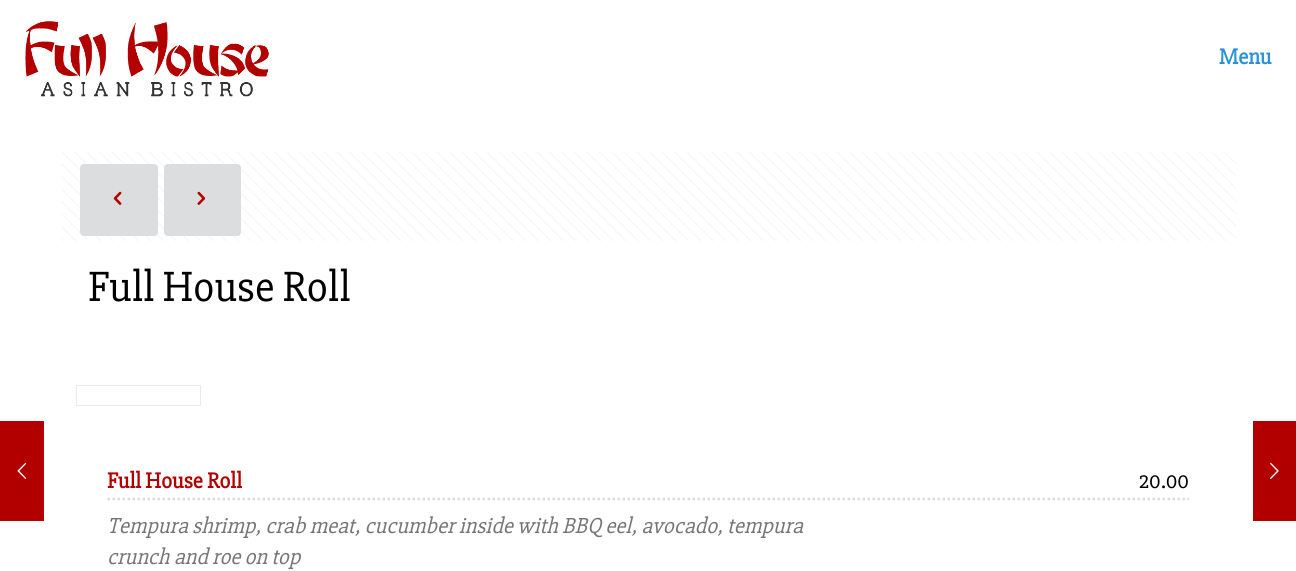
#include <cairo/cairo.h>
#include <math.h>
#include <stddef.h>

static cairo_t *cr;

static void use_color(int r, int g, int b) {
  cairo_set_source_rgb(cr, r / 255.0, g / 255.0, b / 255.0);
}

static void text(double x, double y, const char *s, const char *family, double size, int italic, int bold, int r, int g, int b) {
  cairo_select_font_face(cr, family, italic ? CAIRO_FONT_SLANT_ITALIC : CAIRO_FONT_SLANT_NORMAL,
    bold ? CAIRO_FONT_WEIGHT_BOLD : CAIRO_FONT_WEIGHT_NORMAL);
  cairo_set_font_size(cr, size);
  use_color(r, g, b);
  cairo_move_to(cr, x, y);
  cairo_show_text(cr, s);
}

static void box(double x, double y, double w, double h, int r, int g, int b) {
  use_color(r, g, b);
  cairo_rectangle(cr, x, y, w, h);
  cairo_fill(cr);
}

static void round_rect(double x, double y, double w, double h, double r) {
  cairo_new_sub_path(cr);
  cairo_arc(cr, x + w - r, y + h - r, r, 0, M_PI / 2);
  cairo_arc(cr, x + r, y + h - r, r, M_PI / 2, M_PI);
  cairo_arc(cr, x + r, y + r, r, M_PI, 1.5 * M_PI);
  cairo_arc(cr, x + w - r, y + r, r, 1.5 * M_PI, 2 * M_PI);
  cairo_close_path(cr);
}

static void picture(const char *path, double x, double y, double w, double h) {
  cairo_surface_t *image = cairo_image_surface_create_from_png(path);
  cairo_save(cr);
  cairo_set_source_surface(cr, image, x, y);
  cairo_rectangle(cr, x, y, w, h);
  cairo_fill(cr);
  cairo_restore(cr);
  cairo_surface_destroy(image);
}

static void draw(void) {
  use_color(255, 255, 255);
  cairo_paint(cr);
  box(0, 421, 44, 100, 178, 0, 0);
  picture("img_01.png", 17, 462, 10, 17);
  picture("img_02.png", 25, 21, 244, 76);
  picture("img_03.png", 61, 151, 1175, 90);
  use_color(219, 221, 223);
  round_rect(80, 164, 78, 72, 4);
  cairo_fill(cr);
  picture("img_04.png", 113, 191, 9, 14);
  round_rect(164, 164, 77, 72, 4);
  cairo_fill(cr);
  picture("img_05.png", 197, 191, 9, 14);
  cairo_rectangle(cr, 76.5, 385.5, 124, 20);
  use_color(235, 235, 235);
  cairo_set_line_width(cr, 1);
  cairo_stroke(cr);
  cairo_new_path(cr);
  cairo_move_to(cr, 107.5, 499);
  cairo_line_to(cr, 1189, 499);
  use_color(221, 221, 221);
  cairo_set_line_width(cr, 2.5);
  cairo_set_dash(cr, (double[]){2.5, 2.5}, 2, 0);
  cairo_stroke(cr);
  box(1253, 421, 43, 100, 178, 0, 0);
  picture("img_06.png", 1270, 462, 9, 17);
  text(1219, 64, "Menu", "Slabo 27px", 22.5, 0, 1, 41, 145, 214);
  text(88, 301, "Full House Roll", "Slabo 27px", 43.75, 0, 0, 0, 0, 0);
  text(107, 488, "Full House Roll", "Slabo 27px", 22.5, 0, 1, 178, 0, 0);
  text(1139, 488, "20.00", "Slabo 27px", 22.5, 0, 0, 0, 0, 0);
  text(107, 533, "Tempura shrimp, crab meat, cucumber inside with BBQ eel, avocado, tempura", "Slabo 27px", 22.5, 1, 0, 117, 117, 117);
  text(107, 564, "crunch and roe on top", "Slabo 27px", 22.5, 1, 0, 117, 117, 117);
}

int main(void) {
  cairo_surface_t *surface = cairo_image_surface_create(CAIRO_FORMAT_RGB24, 1296, 571);
  cr = cairo_create(surface);
  cairo_font_options_t *options = cairo_font_options_create();
  cairo_font_options_set_hint_metrics(options, CAIRO_HINT_METRICS_OFF);
  cairo_font_options_set_hint_style(options, CAIRO_HINT_STYLE_NONE);
  cairo_set_font_options(cr, options);
  cairo_set_miter_limit(cr, 4);
  draw();
  cairo_surface_write_to_png(surface, "out.png");
  cairo_font_options_destroy(options);
  cairo_destroy(cr);
  cairo_surface_destroy(surface);
  return 0;
}
